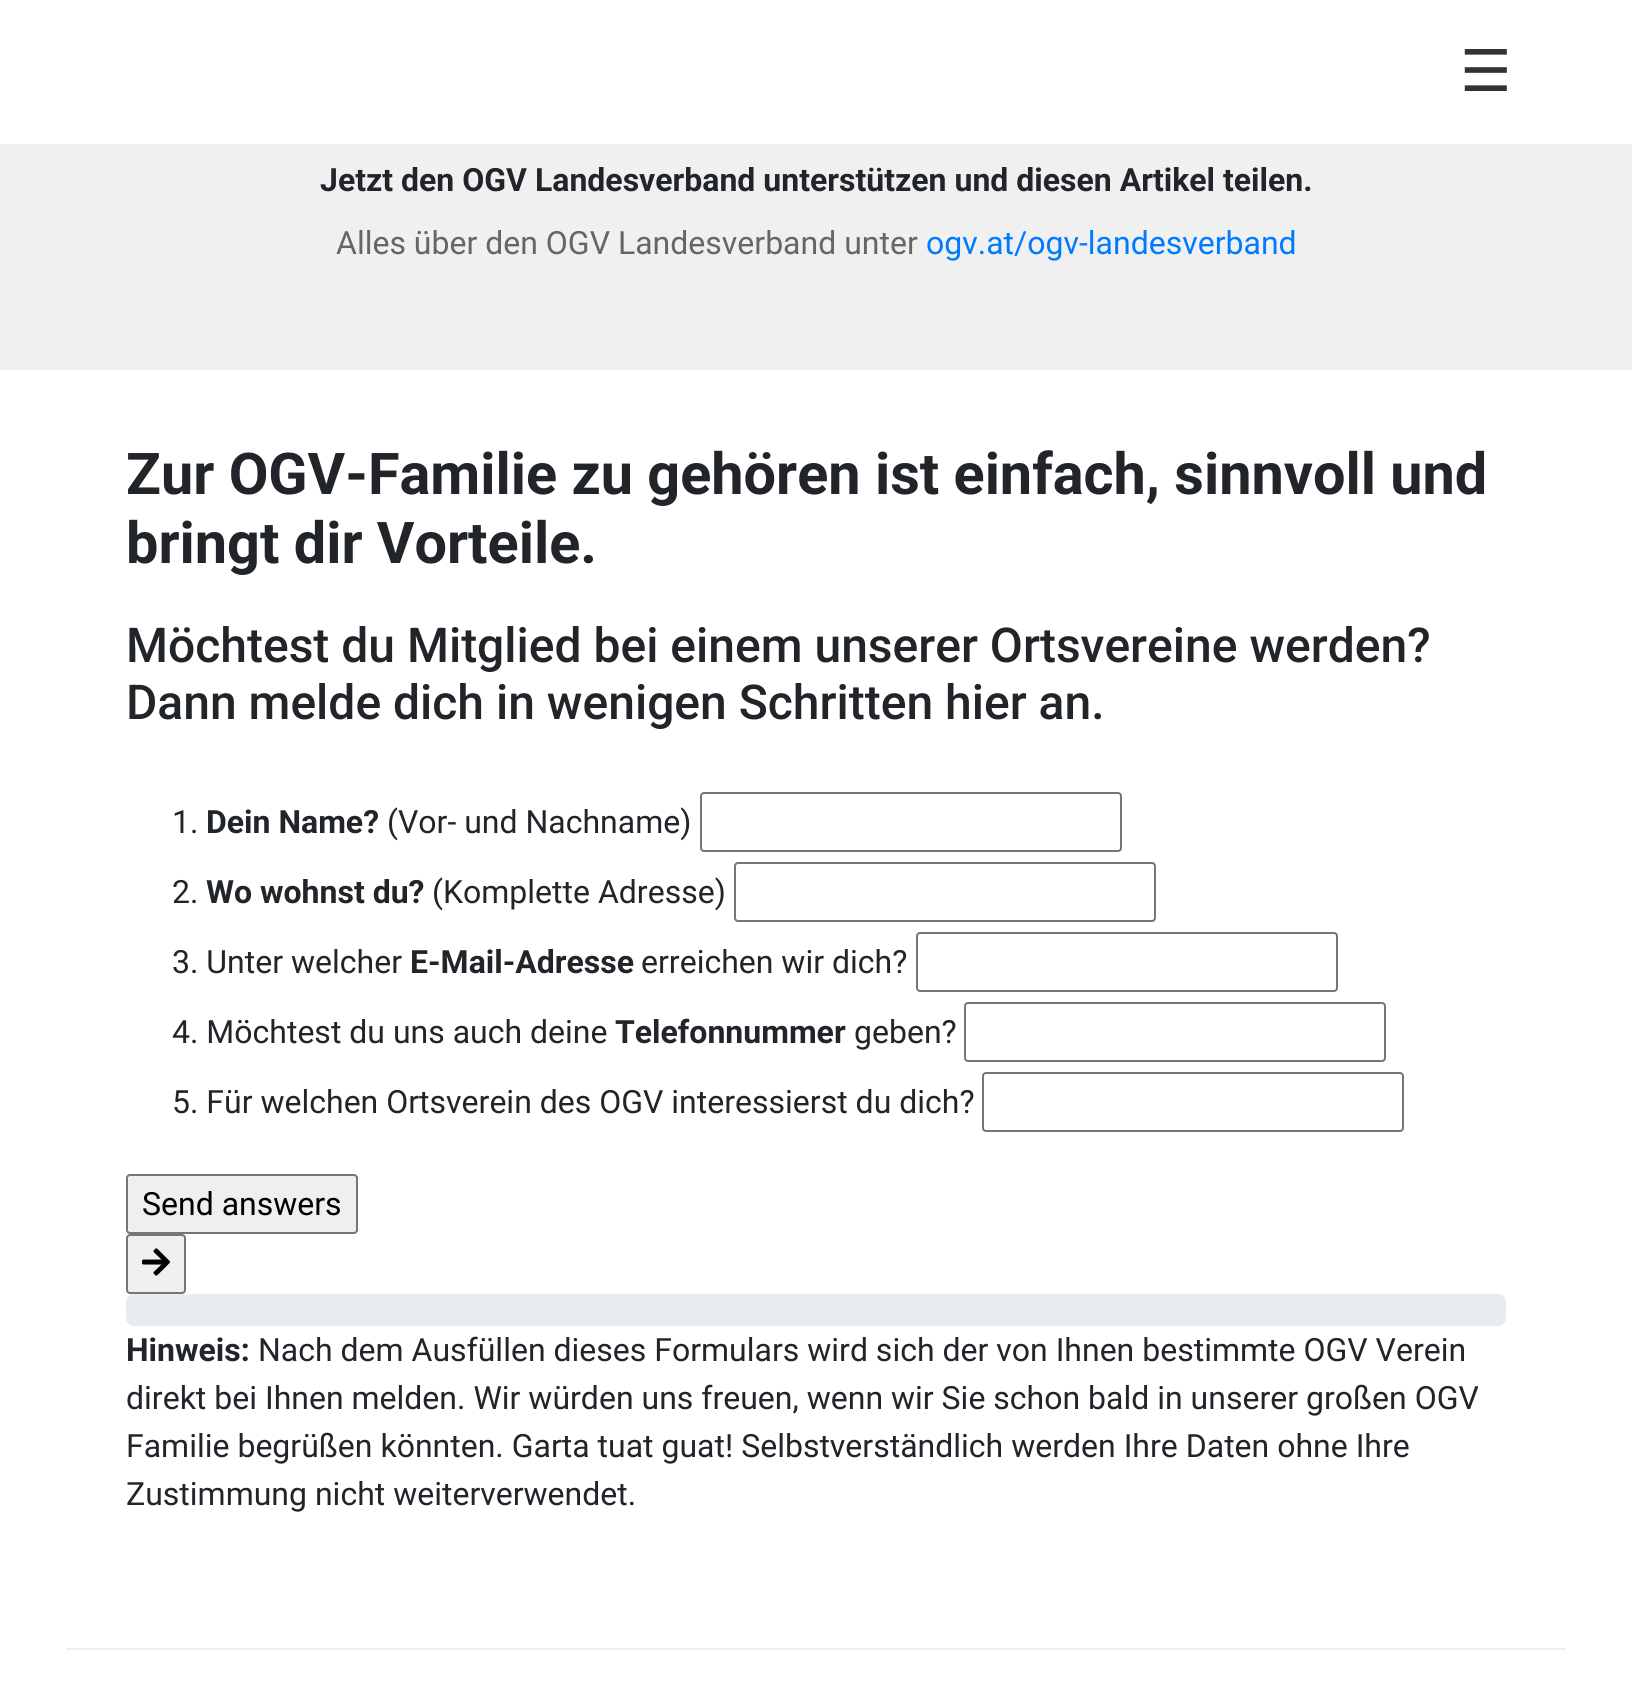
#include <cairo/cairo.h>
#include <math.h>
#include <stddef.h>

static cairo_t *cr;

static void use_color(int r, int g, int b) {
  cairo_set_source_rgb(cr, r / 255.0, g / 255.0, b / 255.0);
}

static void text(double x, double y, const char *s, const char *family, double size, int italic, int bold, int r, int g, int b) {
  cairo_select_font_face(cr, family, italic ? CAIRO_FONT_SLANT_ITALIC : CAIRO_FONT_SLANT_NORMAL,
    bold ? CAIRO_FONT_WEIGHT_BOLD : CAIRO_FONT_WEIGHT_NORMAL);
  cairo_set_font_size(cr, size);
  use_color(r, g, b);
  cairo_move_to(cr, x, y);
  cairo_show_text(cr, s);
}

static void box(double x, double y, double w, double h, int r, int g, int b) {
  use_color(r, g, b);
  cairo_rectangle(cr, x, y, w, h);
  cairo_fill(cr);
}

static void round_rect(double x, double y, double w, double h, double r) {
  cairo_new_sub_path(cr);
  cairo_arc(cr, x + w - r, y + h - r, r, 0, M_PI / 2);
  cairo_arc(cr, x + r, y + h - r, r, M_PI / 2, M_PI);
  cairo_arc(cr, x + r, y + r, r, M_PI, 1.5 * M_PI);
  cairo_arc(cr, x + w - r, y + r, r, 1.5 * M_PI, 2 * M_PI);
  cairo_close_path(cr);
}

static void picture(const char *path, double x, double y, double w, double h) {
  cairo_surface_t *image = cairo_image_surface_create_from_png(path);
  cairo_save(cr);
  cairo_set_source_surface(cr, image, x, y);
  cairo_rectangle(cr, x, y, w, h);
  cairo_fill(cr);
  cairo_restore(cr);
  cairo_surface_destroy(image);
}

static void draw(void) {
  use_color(255, 255, 255);
  cairo_paint(cr);
  box(0, 144, 1632, 226, 240, 240, 240);
  round_rect(701, 793, 420, 58, 3);
  use_color(118, 118, 118);
  cairo_stroke(cr);
  round_rect(735, 863, 420, 58, 3);
  cairo_stroke(cr);
  round_rect(917, 933, 420, 58, 3);
  cairo_stroke(cr);
  round_rect(965, 1003, 420, 58, 3);
  cairo_stroke(cr);
  round_rect(983, 1073, 420, 58, 3);
  cairo_stroke(cr);
  use_color(239, 239, 239);
  round_rect(127, 1175, 230, 58, 3);
  cairo_fill_preserve(cr);
  use_color(118, 118, 118);
  cairo_stroke(cr);
  use_color(239, 239, 239);
  round_rect(127, 1235, 58, 58, 3);
  cairo_fill_preserve(cr);
  use_color(118, 118, 118);
  cairo_stroke(cr);
  picture("img_01.png", 142, 1248, 28, 28);
  use_color(233, 236, 239);
  round_rect(126, 1294, 1380, 32, 8);
  cairo_fill(cr);
  box(66, 1648, 1500, 2, 240, 240, 240);
  text(1460, 91, "☰", "DejaVu Sans", 57.6, 0, 0, 51, 51, 51);
  text(320, 191, "Jetzt den OGV Landesverband unterstützen und diesen Artikel teilen.", "Roboto", 32, 0, 1, 33, 37, 41);
  text(336, 254, "Alles über den OGV Landesverband unter", "Roboto", 32, 0, 0, 102, 102, 102);
  text(926, 254, "ogv.at/ogv-landesverband", "Roboto", 32, 0, 0, 0, 123, 255);
  text(126, 494, "Zur OGV-Familie zu gehören ist einfach, sinnvoll und", "Roboto", 57.6, 0, 1, 33, 37, 41);
  text(126, 563, "bringt dir Vorteile.", "Roboto", 57.6, 0, 1, 33, 37, 41);
  text(126, 662, "Möchtest du Mitglied bei einem unserer Ortsvereine werden?", "Roboto Medium", 48, 0, 0, 33, 37, 41);
  text(126, 719, "Dann melde dich in wenigen Schritten hier an.", "Roboto Medium", 48, 0, 0, 33, 37, 41);
  text(172, 833, "1.", "Roboto", 32, 0, 0, 33, 37, 41);
  text(206, 833, "Dein Name?", "Roboto", 32, 0, 1, 33, 37, 41);
  text(387, 833, "(Vor- und Nachname)", "Roboto", 32, 0, 0, 33, 37, 41);
  text(172, 903, "2.", "Roboto", 32, 0, 0, 33, 37, 41);
  text(206, 903, "Wo wohnst du?", "Roboto", 32, 0, 1, 33, 37, 41);
  text(432, 903, "(Komplette Adresse)", "Roboto", 32, 0, 0, 33, 37, 41);
  text(172, 973, "3. Unter welcher", "Roboto", 32, 0, 0, 33, 37, 41);
  text(410, 973, "E-Mail-Adresse", "Roboto", 32, 0, 1, 33, 37, 41);
  text(641, 973, "erreichen wir dich?", "Roboto", 32, 0, 0, 33, 37, 41);
  text(172, 1043, "4. Möchtest du uns auch deine", "Roboto", 32, 0, 0, 33, 37, 41);
  text(615, 1043, "Telefonnummer", "Roboto", 32, 0, 1, 33, 37, 41);
  text(854, 1043, "geben?", "Roboto", 32, 0, 0, 33, 37, 41);
  text(172, 1113, "5. Für welchen Ortsverein des OGV interessierst du dich?", "Roboto", 32, 0, 0, 33, 37, 41);
  text(142, 1215, "Send answers", "Roboto", 32, 0, 0, 0, 0, 0);
  text(126, 1361, "Hinweis:", "Roboto", 32, 0, 1, 33, 37, 41);
  text(258, 1361, "Nach dem Ausfüllen dieses Formulars wird sich der von Ihnen bestimmte OGV Verein", "Roboto", 32, 0, 0, 33, 37, 41);
  text(126, 1409, "direkt bei Ihnen melden. Wir würden uns freuen, wenn wir Sie schon bald in unserer großen OGV", "Roboto", 32, 0, 0, 33, 37, 41);
  text(126, 1457, "Familie begrüßen könnten. Garta tuat guat! Selbstverständlich werden Ihre Daten ohne Ihre", "Roboto", 32, 0, 0, 33, 37, 41);
  text(126, 1505, "Zustimmung nicht weiterverwendet.", "Roboto", 32, 0, 0, 33, 37, 41);
}

int main(void) {
  cairo_surface_t *surface = cairo_image_surface_create(CAIRO_FORMAT_RGB24, 1632, 1683);
  cr = cairo_create(surface);
  cairo_font_options_t *options = cairo_font_options_create();
  cairo_font_options_set_hint_metrics(options, CAIRO_HINT_METRICS_OFF);
  cairo_font_options_set_hint_style(options, CAIRO_HINT_STYLE_NONE);
  cairo_set_font_options(cr, options);
  cairo_set_miter_limit(cr, 4);
  draw();
  cairo_surface_write_to_png(surface, "out.png");
  cairo_font_options_destroy(options);
  cairo_destroy(cr);
  cairo_surface_destroy(surface);
  return 0;
}
